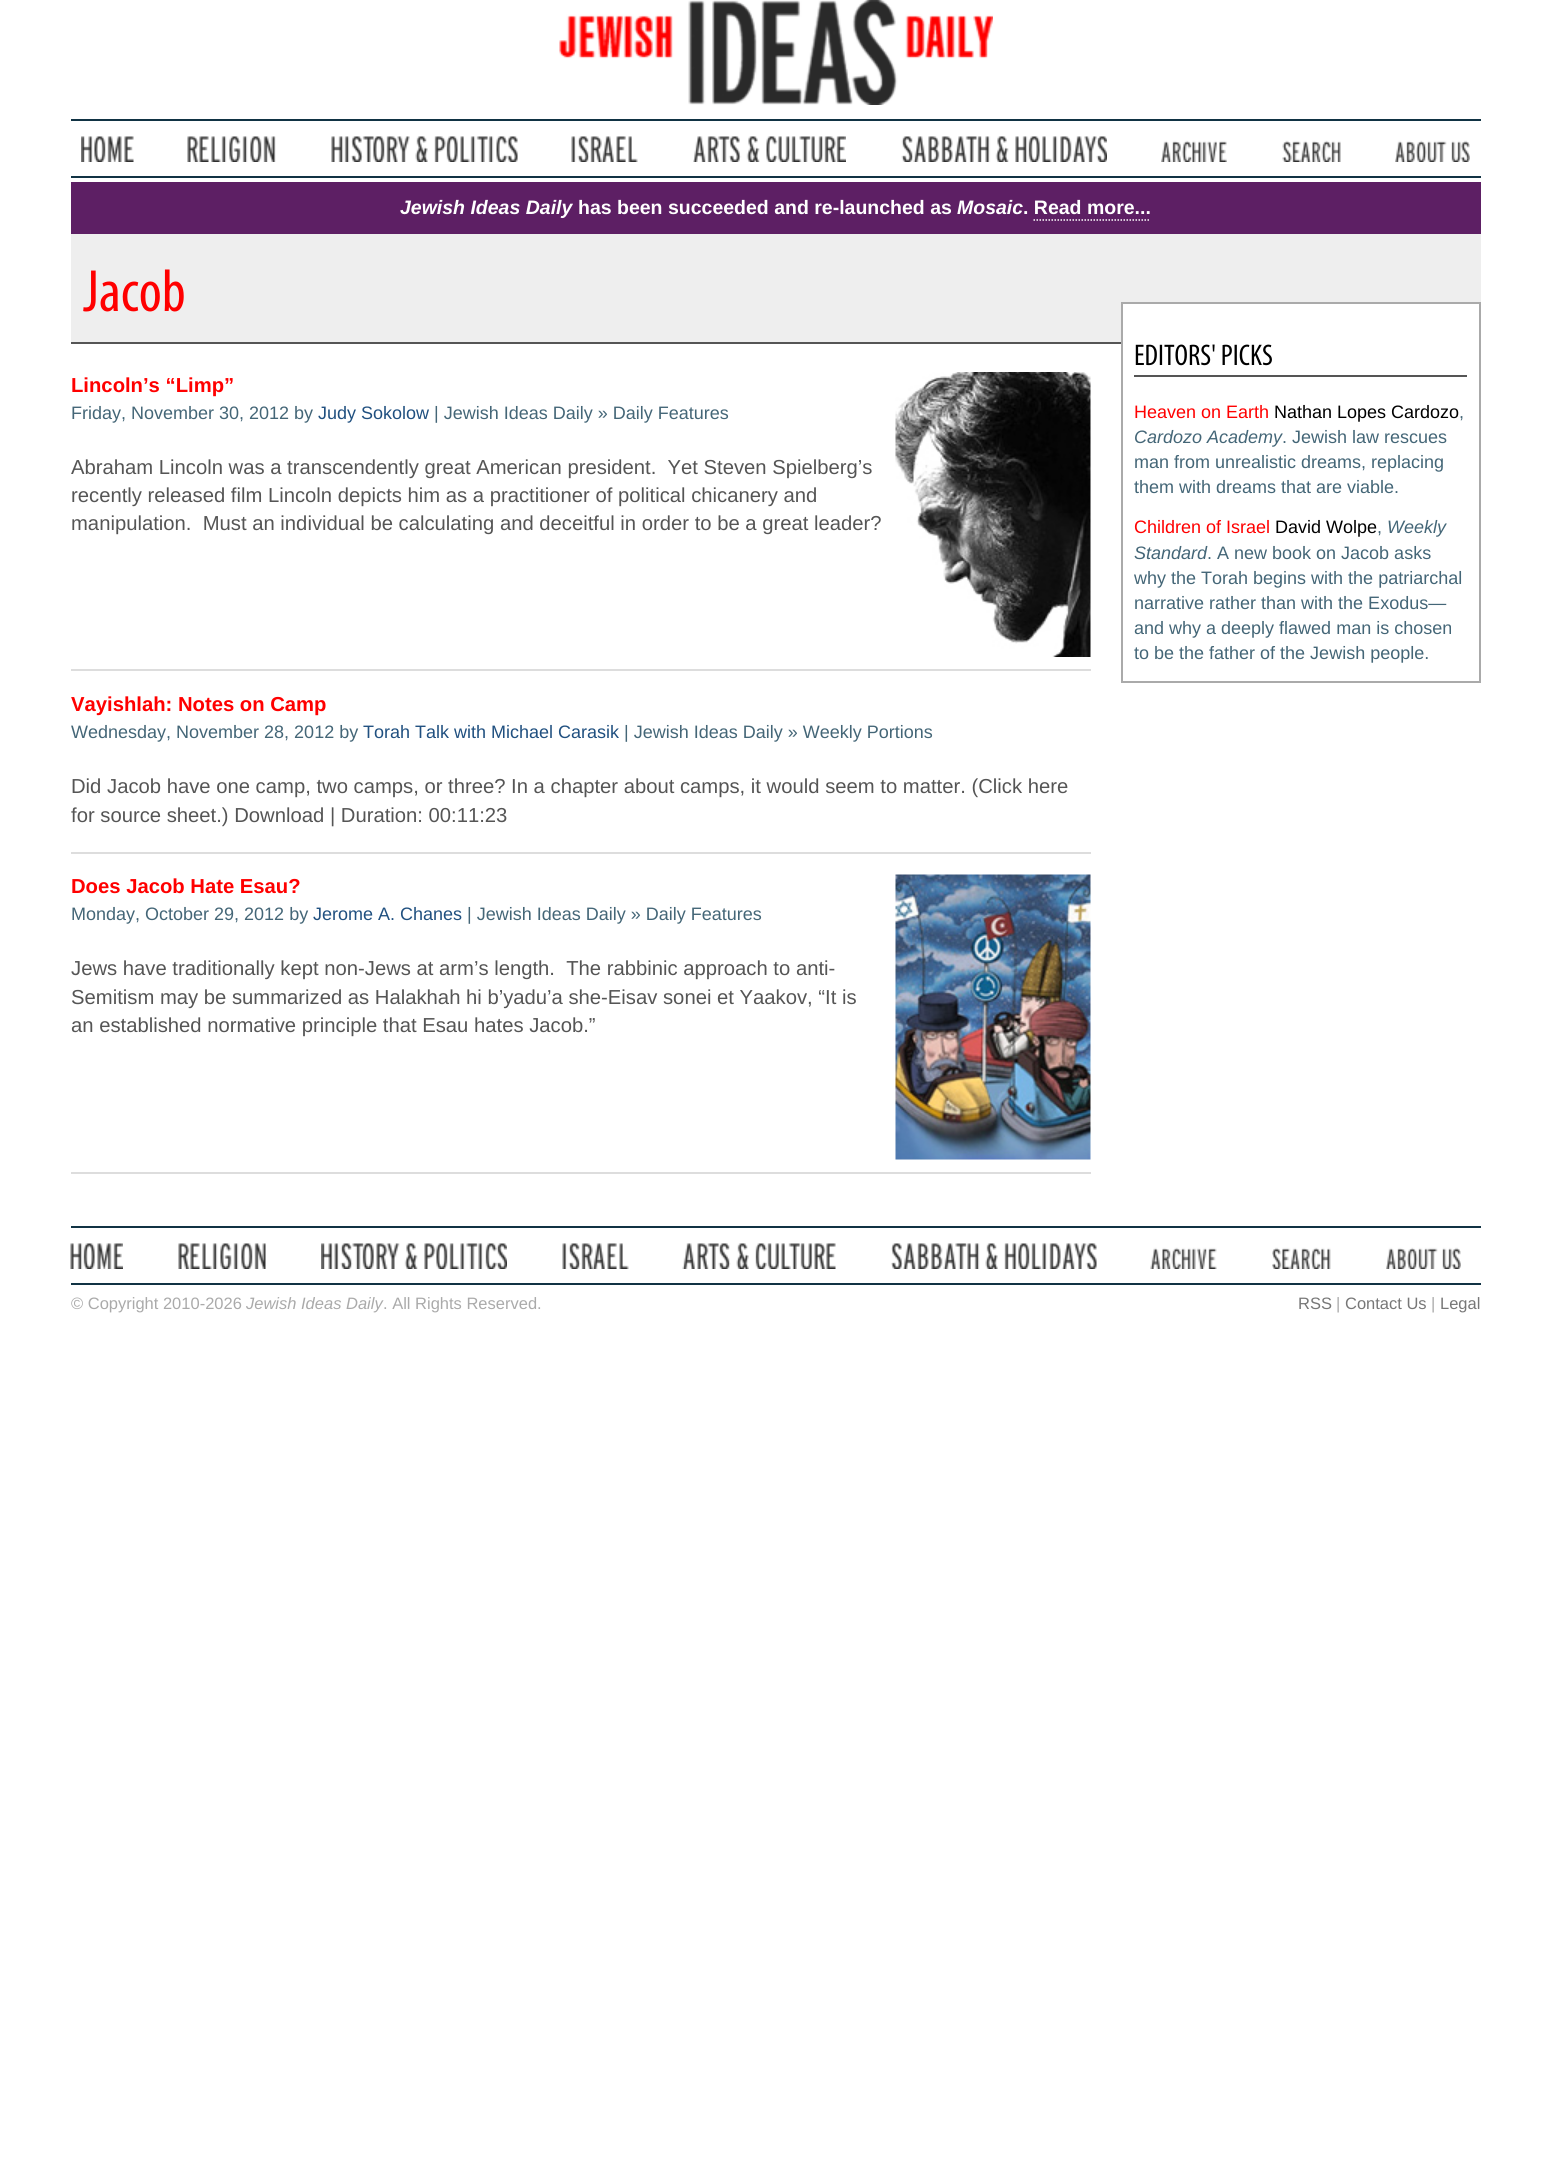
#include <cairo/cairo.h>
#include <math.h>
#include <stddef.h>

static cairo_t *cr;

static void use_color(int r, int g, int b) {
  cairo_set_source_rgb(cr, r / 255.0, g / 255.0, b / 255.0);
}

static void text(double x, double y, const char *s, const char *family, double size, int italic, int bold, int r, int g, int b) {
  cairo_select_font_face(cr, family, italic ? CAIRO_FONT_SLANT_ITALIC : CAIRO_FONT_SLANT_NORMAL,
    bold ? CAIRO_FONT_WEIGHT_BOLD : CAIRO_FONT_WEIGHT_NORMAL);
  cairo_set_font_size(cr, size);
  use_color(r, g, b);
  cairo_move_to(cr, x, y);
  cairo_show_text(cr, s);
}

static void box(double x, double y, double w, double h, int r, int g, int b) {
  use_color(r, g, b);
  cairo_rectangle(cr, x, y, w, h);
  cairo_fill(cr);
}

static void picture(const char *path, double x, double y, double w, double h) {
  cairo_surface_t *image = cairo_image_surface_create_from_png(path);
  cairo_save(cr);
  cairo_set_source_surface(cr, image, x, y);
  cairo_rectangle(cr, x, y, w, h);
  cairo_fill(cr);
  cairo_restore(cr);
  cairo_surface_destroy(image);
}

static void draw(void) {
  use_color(255, 255, 255);
  cairo_paint(cr);
  picture("img_01.png", 559, 0, 434, 105);
  box(71, 119, 1410, 2, 17, 51, 68);
  picture("img_02.png", 81, 136, 53, 26);
  picture("img_03.png", 187, 136, 89, 26);
  picture("img_04.png", 331, 136, 187, 26);
  picture("img_05.png", 571, 136, 67, 26);
  picture("img_06.png", 693, 136, 153, 26);
  picture("img_07.png", 901, 136, 206, 26);
  picture("img_08.png", 1161, 140, 66, 22);
  picture("img_09.png", 1282, 140, 59, 22);
  picture("img_10.png", 1395, 140, 75, 22);
  box(71, 176, 1410, 2, 17, 51, 68);
  box(71, 182, 1410, 52, 93, 31, 100);
  cairo_new_path(cr);
  cairo_move_to(cr, 1033.5, 220);
  cairo_line_to(cr, 1150.5, 220);
  use_color(255, 255, 255);
  cairo_set_line_width(cr, 1.5);
  cairo_set_dash(cr, (double[]){1.5, 1.5}, 2, 0);
  cairo_stroke(cr);
  box(71, 234, 1410, 108, 238, 238, 238);
  box(71, 342, 1050, 2, 85, 85, 85);
  picture("img_11.png", 895, 372, 196, 285);
  box(71, 669, 1020, 2, 221, 221, 221);
  box(71, 852, 1020, 2, 221, 221, 221);
  picture("img_12.png", 895, 874, 196, 286);
  box(71, 1172, 1020, 2, 221, 221, 221);
  box(1123, 304, 356, 38, 255, 255, 255);
  cairo_rectangle(cr, 1122, 303, 358, 379);
  use_color(170, 170, 170);
  cairo_set_line_width(cr, 2);
  cairo_set_dash(cr, NULL, 0, 0);
  cairo_stroke(cr);
  box(1134, 375, 333, 2, 85, 85, 85);
  box(71, 1226, 1410, 2, 17, 51, 68);
  picture("img_13.png", 70, 1243, 53, 26);
  picture("img_14.png", 178, 1243, 88, 26);
  picture("img_15.png", 321, 1243, 186, 26);
  picture("img_16.png", 562, 1243, 67, 26);
  picture("img_17.png", 682, 1243, 154, 26);
  picture("img_18.png", 891, 1243, 206, 26);
  picture("img_19.png", 1150, 1247, 67, 22);
  picture("img_20.png", 1272, 1247, 59, 22);
  picture("img_10.png", 1386, 1247, 75, 22);
  box(71, 1283, 1410, 2, 17, 51, 68);
  text(400, 214, "Jewish Ideas Daily", "Liberation Sans", 19.5, 1, 1, 255, 255, 255);
  text(578, 214, "has been succeeded and re-launched as", "Liberation Sans", 19.5, 0, 1, 255, 255, 255);
  text(957, 214, "Mosaic", "Liberation Sans", 19.5, 1, 1, 255, 255, 255);
  text(1023, 214, ". Read more...", "Liberation Sans", 19.5, 0, 1, 255, 255, 255);
  text(83, 311, "Jacob", "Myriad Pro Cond", 60, 0, 0, 255, 0, 0);
  text(71, 392, "Lincoln’s “Limp”", "Liberation Sans", 20.25, 0, 1, 255, 0, 0);
  text(71, 419, "Friday, November 30, 2012 by", "Liberation Sans", 18, 0, 0, 68, 102, 119);
  text(318, 419, "Judy Sokolow", "Liberation Sans", 18, 0, 0, 32, 80, 128);
  text(434, 419, "| Jewish Ideas Daily » Daily Features", "Liberation Sans", 18, 0, 0, 68, 102, 119);
  text(71, 474, "Abraham Lincoln was a transcendently great American president.  Yet Steven Spielberg’s", "Liberation Sans", 20.25, 0, 0, 85, 85, 85);
  text(71, 502, "recently released film Lincoln depicts him as a practitioner of political chicanery and", "Liberation Sans", 20.25, 0, 0, 85, 85, 85);
  text(71, 530, "manipulation.  Must an individual be calculating and deceitful in order to be a great leader?", "Liberation Sans", 20.25, 0, 0, 85, 85, 85);
  text(71, 711, "Vayishlah: Notes on Camp", "Liberation Sans", 20.25, 0, 1, 255, 0, 0);
  text(71, 738, "Wednesday, November 28, 2012 by", "Liberation Sans", 18, 0, 0, 68, 102, 119);
  text(363, 738, "Torah Talk with Michael Carasik", "Liberation Sans", 18, 0, 0, 32, 80, 128);
  text(624, 738, "| Jewish Ideas Daily » Weekly Portions", "Liberation Sans", 18, 0, 0, 68, 102, 119);
  text(71, 793, "Did Jacob have one camp, two camps, or three? In a chapter about camps, it would seem to matter. (Click here", "Liberation Sans", 20.25, 0, 0, 85, 85, 85);
  text(71, 822, "for source sheet.) Download | Duration: 00:11:23", "Liberation Sans", 20.25, 0, 0, 85, 85, 85);
  text(71, 893, "Does Jacob Hate Esau?", "Liberation Sans", 20.25, 0, 1, 255, 0, 0);
  text(71, 920, "Monday, October 29, 2012 by", "Liberation Sans", 18, 0, 0, 68, 102, 119);
  text(313, 920, "Jerome A. Chanes", "Liberation Sans", 18, 0, 0, 32, 80, 128);
  text(467, 920, "| Jewish Ideas Daily » Daily Features", "Liberation Sans", 18, 0, 0, 68, 102, 119);
  text(71, 975, "Jews have traditionally kept non-Jews at arm’s length.  The rabbinic approach to anti-", "Liberation Sans", 20.25, 0, 0, 85, 85, 85);
  text(71, 1004, "Semitism may be summarized as Halakhah hi b’yadu’a she-Eisav sonei et Yaakov, “It is", "Liberation Sans", 20.25, 0, 0, 85, 85, 85);
  text(71, 1032, "an established normative principle that Esau hates Jacob.”", "Liberation Sans", 20.25, 0, 0, 85, 85, 85);
  text(1134, 365, "EDITORS' PICKS", "Myriad Pro Cond", 30, 0, 0, 0, 0, 0);
  text(1134, 418, "Heaven on Earth", "Liberation Sans", 18, 0, 0, 255, 0, 0);
  text(1274, 418, "Nathan Lopes Cardozo", "Liberation Sans", 18, 0, 0, 0, 0, 0);
  text(1459, 418, ",", "Liberation Sans", 18, 0, 0, 68, 102, 119);
  text(1134, 443, "Cardozo Academy", "Liberation Sans", 18, 1, 0, 68, 102, 119);
  text(1282, 443, ". Jewish law rescues", "Liberation Sans", 18, 0, 0, 68, 102, 119);
  text(1134, 468, "man from unrealistic dreams, replacing", "Liberation Sans", 18, 0, 0, 68, 102, 119);
  text(1134, 493, "them with dreams that are viable.", "Liberation Sans", 18, 0, 0, 68, 102, 119);
  text(1134, 533, "Children of Israel", "Liberation Sans", 18, 0, 0, 255, 0, 0);
  text(1275, 533, "David Wolpe", "Liberation Sans", 18, 0, 0, 0, 0, 0);
  text(1377, 533, ",", "Liberation Sans", 18, 0, 0, 68, 102, 119);
  text(1387, 533, "Weekly", "Liberation Sans", 18, 1, 0, 68, 102, 119);
  text(1134, 559, "Standard", "Liberation Sans", 18, 1, 0, 68, 102, 119);
  text(1207, 559, ". A new book on Jacob asks", "Liberation Sans", 18, 0, 0, 68, 102, 119);
  text(1134, 584, "why the Torah begins with the patriarchal", "Liberation Sans", 18, 0, 0, 68, 102, 119);
  text(1134, 609, "narrative rather than with the Exodus—", "Liberation Sans", 18, 0, 0, 68, 102, 119);
  text(1134, 634, "and why a deeply flawed man is chosen", "Liberation Sans", 18, 0, 0, 68, 102, 119);
  text(1134, 659, "to be the father of the Jewish people.", "Liberation Sans", 18, 0, 0, 68, 102, 119);
  text(71, 1309, "© Copyright 2010-2026", "Liberation Sans", 16.5, 0, 0, 170, 170, 170);
  text(246, 1309, "Jewish Ideas Daily", "Liberation Sans", 16.5, 1, 0, 170, 170, 170);
  text(383, 1309, ". All Rights Reserved.", "Liberation Sans", 16.5, 0, 0, 170, 170, 170);
  text(1298, 1309, "RSS", "Liberation Sans", 16.5, 0, 0, 119, 119, 119);
  text(1336, 1309, "|", "Liberation Sans", 16.5, 0, 0, 170, 170, 170);
  text(1345, 1309, "Contact Us", "Liberation Sans", 16.5, 0, 0, 119, 119, 119);
  text(1431, 1309, "|", "Liberation Sans", 16.5, 0, 0, 170, 170, 170);
  text(1440, 1309, "Legal", "Liberation Sans", 16.5, 0, 0, 119, 119, 119);
}

int main(void) {
  cairo_surface_t *surface = cairo_image_surface_create(CAIRO_FORMAT_RGB24, 1551, 2158);
  cr = cairo_create(surface);
  cairo_font_options_t *options = cairo_font_options_create();
  cairo_font_options_set_hint_metrics(options, CAIRO_HINT_METRICS_OFF);
  cairo_font_options_set_hint_style(options, CAIRO_HINT_STYLE_NONE);
  cairo_set_font_options(cr, options);
  cairo_set_miter_limit(cr, 4);
  draw();
  cairo_surface_write_to_png(surface, "out.png");
  cairo_font_options_destroy(options);
  cairo_destroy(cr);
  cairo_surface_destroy(surface);
  return 0;
}
